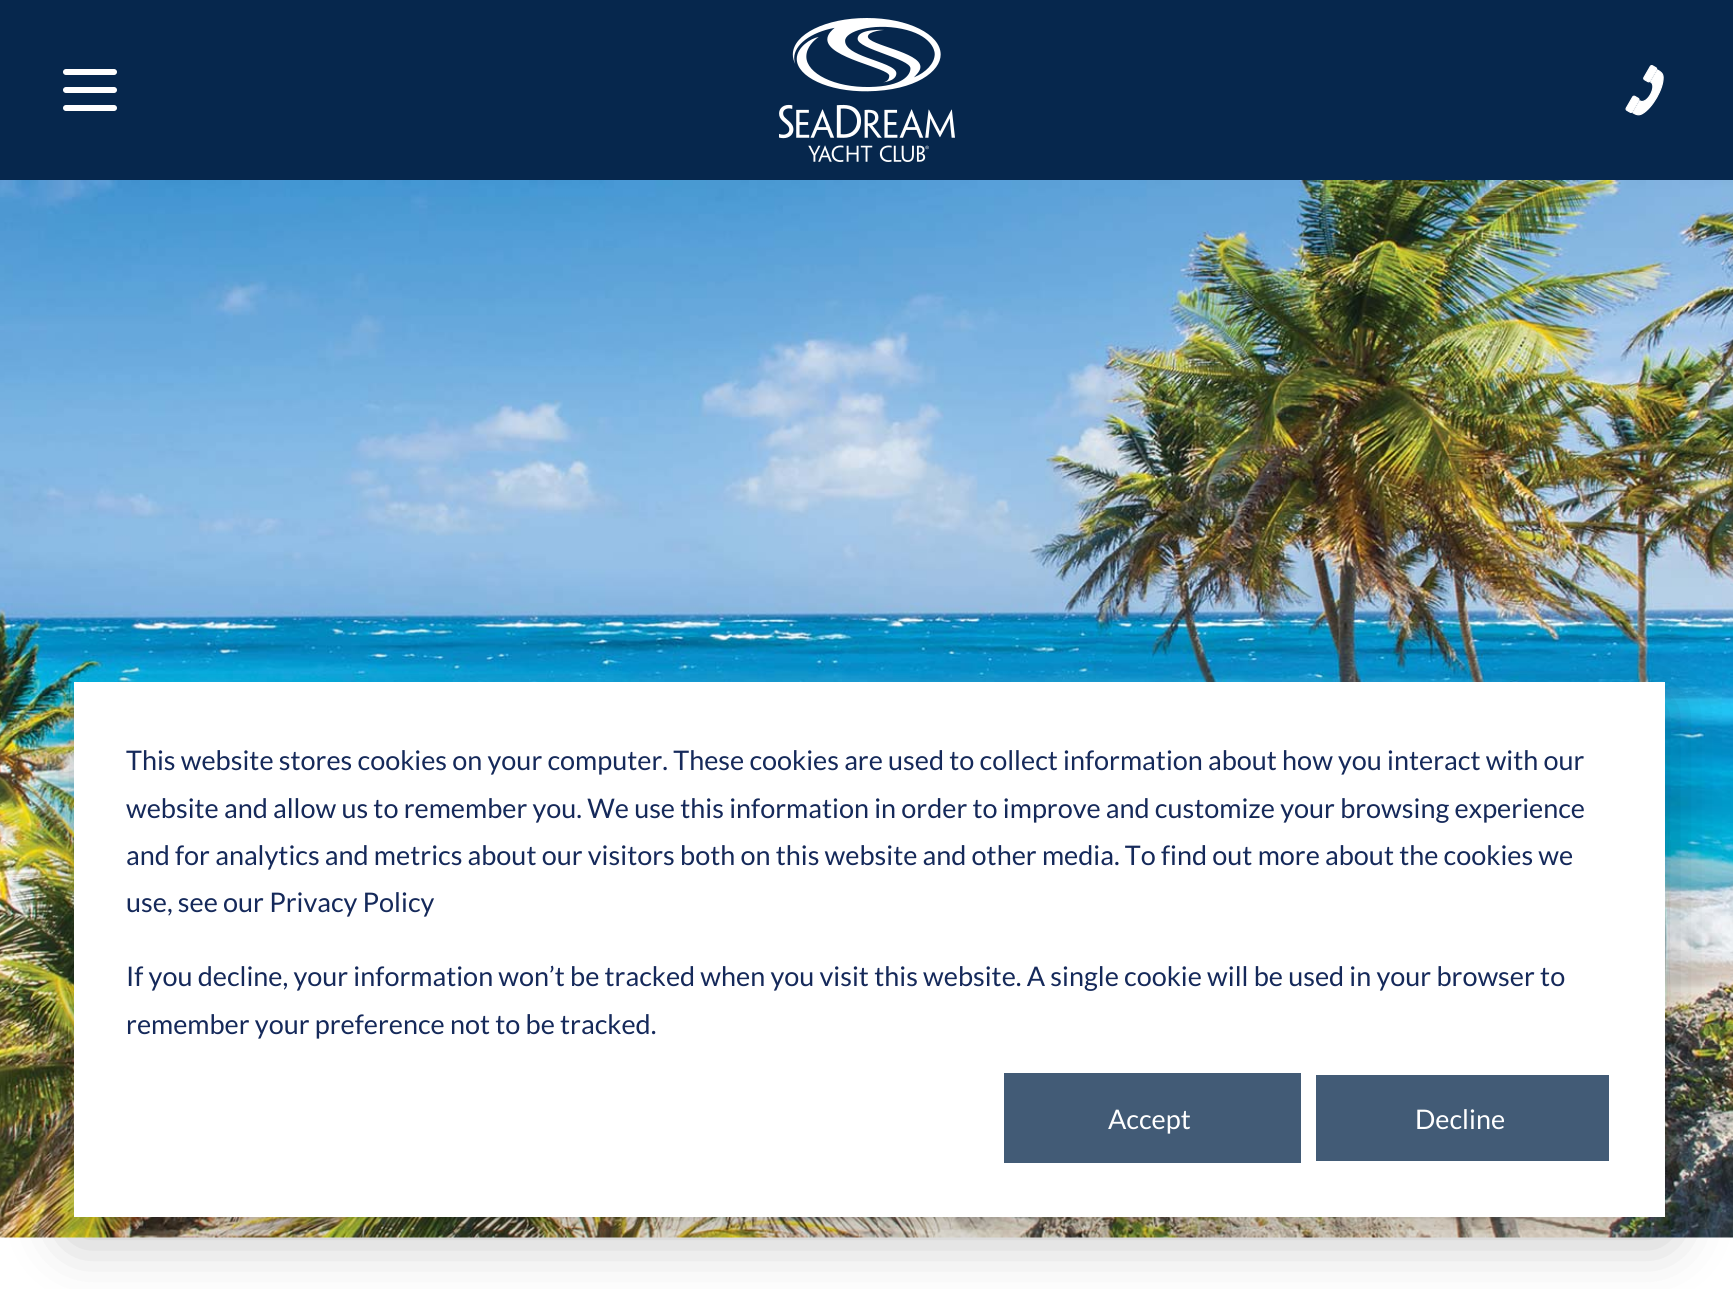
#include <cairo/cairo.h>
#include <math.h>
#include <stddef.h>

static cairo_t *cr;

static void use_color(int r, int g, int b) {
  cairo_set_source_rgb(cr, r / 255.0, g / 255.0, b / 255.0);
}

static void text(double x, double y, const char *s, const char *family, double size, int italic, int bold, int r, int g, int b) {
  cairo_select_font_face(cr, family, italic ? CAIRO_FONT_SLANT_ITALIC : CAIRO_FONT_SLANT_NORMAL,
    bold ? CAIRO_FONT_WEIGHT_BOLD : CAIRO_FONT_WEIGHT_NORMAL);
  cairo_set_font_size(cr, size);
  use_color(r, g, b);
  cairo_move_to(cr, x, y);
  cairo_show_text(cr, s);
}

static void box(double x, double y, double w, double h, int r, int g, int b) {
  use_color(r, g, b);
  cairo_rectangle(cr, x, y, w, h);
  cairo_fill(cr);
}

static void round_rect(double x, double y, double w, double h, double r) {
  cairo_new_sub_path(cr);
  cairo_arc(cr, x + w - r, y + h - r, r, 0, M_PI / 2);
  cairo_arc(cr, x + r, y + h - r, r, M_PI / 2, M_PI);
  cairo_arc(cr, x + r, y + r, r, M_PI, 1.5 * M_PI);
  cairo_arc(cr, x + w - r, y + r, r, 1.5 * M_PI, 2 * M_PI);
  cairo_close_path(cr);
}

static void shadow(double x, double y, double w, double h, double r, double blur, double alpha) {
  cairo_push_group_with_content(cr, CAIRO_CONTENT_ALPHA);
  cairo_set_operator(cr, CAIRO_OPERATOR_SOURCE);
  for (int i = 15; i >= -15 && fmin(w, h) + blur * i / 3 > 0; i -= 2) {
    double e = blur * i / 6;
    cairo_set_source_rgba(cr, 0, 0, 0, alpha * erfc((i - 1) / 8.5) / 2);
    round_rect(x - e, y - e, w + 2 * e, h + 2 * e, fmax(0, fmin(r + e + blur * .6, fmin(w, h) / 2 + e)));
    cairo_fill(cr);
  }
  cairo_pattern_t *soft = cairo_pop_group(cr);
  cairo_mask(cr, soft);
  cairo_pattern_destroy(soft);
}

static void picture(const char *path, double x, double y, double w, double h) {
  cairo_surface_t *image = cairo_image_surface_create_from_png(path);
  cairo_save(cr);
  cairo_set_source_surface(cr, image, x, y);
  cairo_rectangle(cr, x, y, w, h);
  cairo_fill(cr);
  cairo_restore(cr);
  cairo_surface_destroy(image);
}

static void draw(void) {
  use_color(255, 255, 255);
  cairo_paint(cr);
  box(0, 0, 1733, 180, 6, 39, 77);
  cairo_new_path(cr);
  cairo_move_to(cr, 66, 72);
  cairo_line_to(cr, 114, 72);
  cairo_move_to(cr, 66, 90);
  cairo_line_to(cr, 114, 90);
  cairo_move_to(cr, 66, 108);
  cairo_line_to(cr, 114, 108);
  use_color(255, 255, 255);
  cairo_set_line_width(cr, 6);
  cairo_set_line_cap(cr, CAIRO_LINE_CAP_ROUND);
  cairo_set_line_join(cr, CAIRO_LINE_JOIN_ROUND);
  cairo_stroke(cr);
  picture("img_01.png", 779, 18, 176, 144);
  picture("img_02.png", 1625, 65, 39, 51);
  picture("img_03.png", 0, 180, 1733, 1058);
  use_color(0, 0, 0);
  shadow(74, 700, 1591, 535, 0, 31.5, 0.28);
  box(74, 682, 1591, 535, 255, 255, 255);
  box(1004, 1073, 297, 90, 66, 91, 118);
  box(1316, 1075, 293, 86, 66, 91, 118);
  text(126, 770, "This website stores cookies on your computer. These cookies are used to collect information about how you interact with our", "Lato", 27, 0, 0, 21, 41, 90);
  text(126, 818, "website and allow us to remember you. We use this information in order to improve and customize your browsing experience", "Lato", 27, 0, 0, 21, 41, 90);
  text(126, 865, "and for analytics and metrics about our visitors both on this website and other media. To find out more about the cookies we", "Lato", 27, 0, 0, 21, 41, 90);
  text(126, 912, "use, see our Privacy Policy", "Lato", 27, 0, 0, 21, 41, 90);
  text(126, 986, "If you decline, your information won’t be tracked when you visit this website. A single cookie will be used in your browser to", "Lato", 27, 0, 0, 21, 41, 90);
  text(126, 1034, "remember your preference not to be tracked.", "Lato", 27, 0, 0, 21, 41, 90);
  text(1108, 1129, "Accept", "Lato", 27, 0, 0, 255, 255, 255);
  text(1415, 1129, "Decline", "Lato", 27, 0, 0, 255, 255, 255);
}

int main(void) {
  cairo_surface_t *surface = cairo_image_surface_create(CAIRO_FORMAT_RGB24, 1733, 1289);
  cr = cairo_create(surface);
  cairo_font_options_t *options = cairo_font_options_create();
  cairo_font_options_set_hint_metrics(options, CAIRO_HINT_METRICS_OFF);
  cairo_font_options_set_hint_style(options, CAIRO_HINT_STYLE_NONE);
  cairo_set_font_options(cr, options);
  cairo_set_miter_limit(cr, 4);
  draw();
  cairo_surface_write_to_png(surface, "out.png");
  cairo_font_options_destroy(options);
  cairo_destroy(cr);
  cairo_surface_destroy(surface);
  return 0;
}
